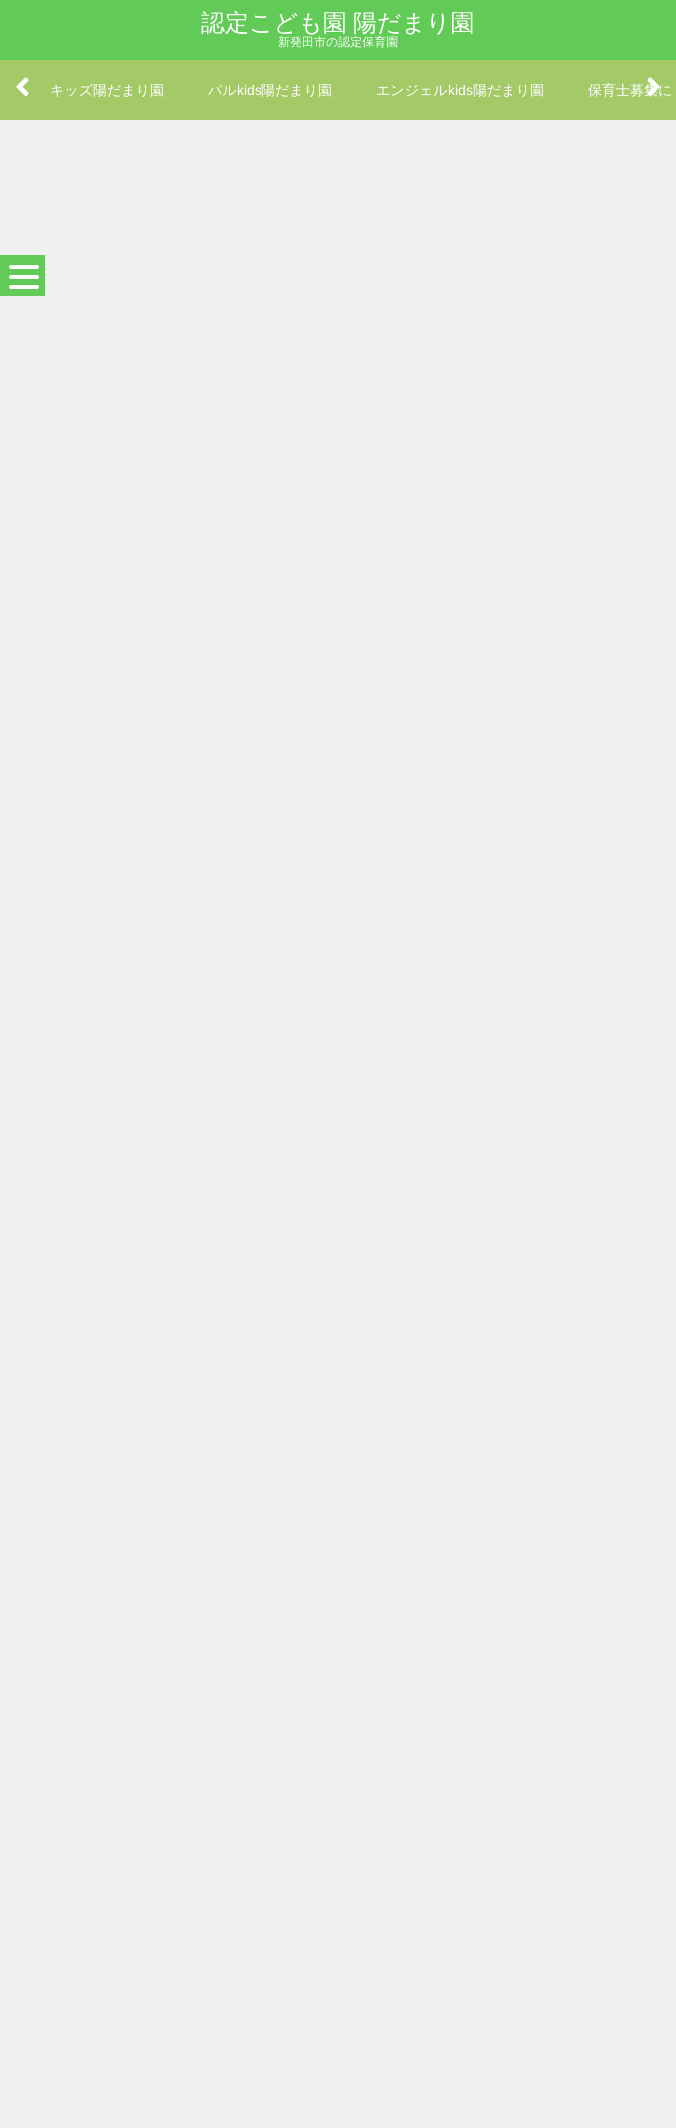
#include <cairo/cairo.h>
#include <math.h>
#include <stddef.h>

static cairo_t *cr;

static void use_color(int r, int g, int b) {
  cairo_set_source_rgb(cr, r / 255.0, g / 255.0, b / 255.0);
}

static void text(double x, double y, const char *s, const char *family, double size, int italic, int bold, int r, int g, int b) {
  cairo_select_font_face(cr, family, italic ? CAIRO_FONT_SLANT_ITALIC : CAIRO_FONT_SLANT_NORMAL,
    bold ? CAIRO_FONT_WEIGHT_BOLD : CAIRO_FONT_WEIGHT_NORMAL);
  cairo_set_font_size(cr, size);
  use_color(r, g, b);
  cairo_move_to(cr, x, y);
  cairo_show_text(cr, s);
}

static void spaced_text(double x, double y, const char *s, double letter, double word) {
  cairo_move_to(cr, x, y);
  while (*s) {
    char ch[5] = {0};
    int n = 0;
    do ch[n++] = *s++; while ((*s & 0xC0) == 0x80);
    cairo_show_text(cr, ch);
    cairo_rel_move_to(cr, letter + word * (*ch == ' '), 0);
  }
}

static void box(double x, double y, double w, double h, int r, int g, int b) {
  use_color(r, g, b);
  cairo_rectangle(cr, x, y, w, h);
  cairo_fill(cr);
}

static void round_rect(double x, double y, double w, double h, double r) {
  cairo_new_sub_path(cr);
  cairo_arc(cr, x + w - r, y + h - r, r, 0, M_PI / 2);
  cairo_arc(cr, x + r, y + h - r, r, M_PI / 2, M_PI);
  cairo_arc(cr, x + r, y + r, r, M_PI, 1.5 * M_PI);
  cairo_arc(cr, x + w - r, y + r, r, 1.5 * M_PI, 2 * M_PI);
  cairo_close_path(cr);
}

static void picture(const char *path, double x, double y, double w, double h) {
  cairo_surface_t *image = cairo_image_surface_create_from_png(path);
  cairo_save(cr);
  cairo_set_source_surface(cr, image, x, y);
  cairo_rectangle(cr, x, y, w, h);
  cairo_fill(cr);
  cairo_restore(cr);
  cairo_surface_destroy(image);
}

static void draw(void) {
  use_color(240, 240, 240);
  cairo_paint(cr);
  box(0, 0, 676, 60, 98, 202, 87);
  box(0, 60, 676, 60, 164, 202, 104);
  picture("img_01.png", 16, 77, 13, 20);
  box(0, 255, 45, 41, 98, 202, 87);
  use_color(255, 255, 255);
  round_rect(9, 265, 30, 4, 2);
  cairo_fill(cr);
  round_rect(9, 275, 30, 4, 2);
  cairo_fill(cr);
  round_rect(9, 285, 30, 4, 2);
  cairo_fill(cr);
  cairo_select_font_face(cr, "WenQuanYi Zen Hei Medium", CAIRO_FONT_SLANT_NORMAL, CAIRO_FONT_WEIGHT_NORMAL);
  cairo_set_font_size(cr, 24);
  spaced_text(201, 31, "認定こども園 陽だまり園", 0, -1);
  text(278, 46, "新発田市の認定保育園", "WenQuanYi Zen Hei Medium", 12, 0, 0, 255, 255, 255);
  text(50, 95, "キッズ陽だまり園", "WenQuanYi Zen Hei Medium", 14, 0, 0, 255, 255, 255);
  text(208, 95, "パル", "WenQuanYi Zen Hei Medium", 14, 0, 0, 255, 255, 255);
  text(237, 95, "kids", "Liberation Sans", 14, 0, 0, 255, 255, 255);
  text(261, 95, "陽だまり園", "WenQuanYi Zen Hei Medium", 14, 0, 0, 255, 255, 255);
  text(376, 95, "エンジェル", "WenQuanYi Zen Hei Medium", 14, 0, 0, 255, 255, 255);
  text(448, 95, "kids", "Liberation Sans", 14, 0, 0, 255, 255, 255);
  text(473, 95, "陽だまり園", "WenQuanYi Zen Hei Medium", 14, 0, 0, 255, 255, 255);
  text(588, 95, "保育士募集に", "WenQuanYi Zen Hei Medium", 14, 0, 0, 255, 255, 255);
  picture("img_02.png", 647, 77, 13, 20);
}

int main(void) {
  cairo_surface_t *surface = cairo_image_surface_create(CAIRO_FORMAT_RGB24, 676, 2128);
  cr = cairo_create(surface);
  cairo_font_options_t *options = cairo_font_options_create();
  cairo_font_options_set_hint_metrics(options, CAIRO_HINT_METRICS_OFF);
  cairo_font_options_set_hint_style(options, CAIRO_HINT_STYLE_NONE);
  cairo_set_font_options(cr, options);
  cairo_set_miter_limit(cr, 4);
  draw();
  cairo_surface_write_to_png(surface, "out.png");
  cairo_font_options_destroy(options);
  cairo_destroy(cr);
  cairo_surface_destroy(surface);
  return 0;
}
